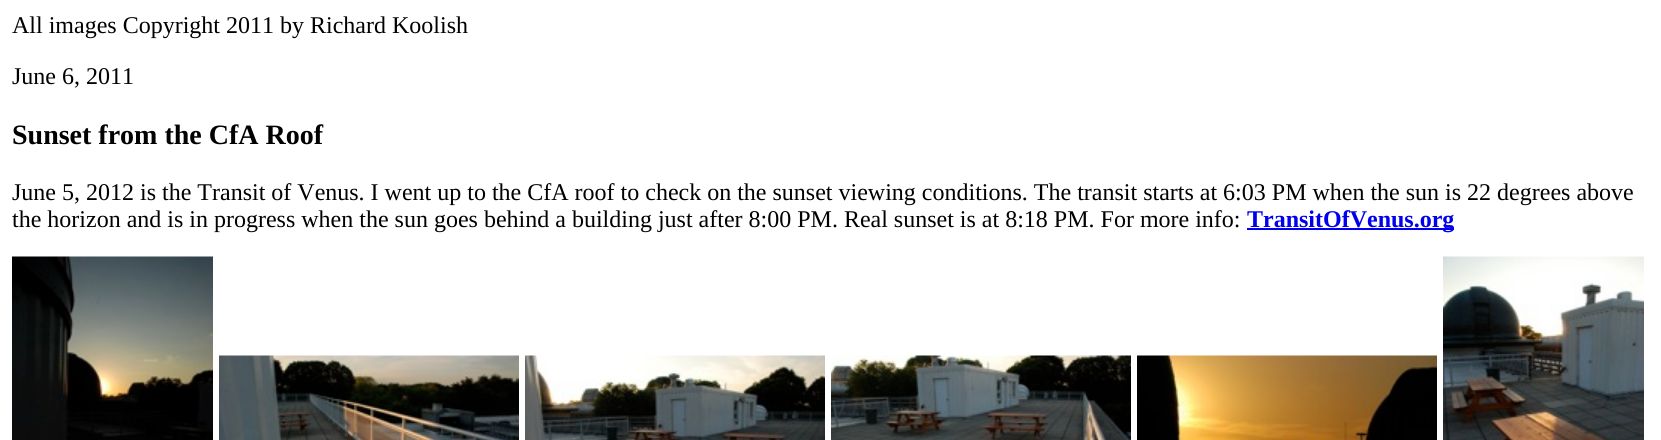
#include <cairo/cairo.h>
#include <math.h>
#include <stddef.h>

static cairo_t *cr;

static void use_color(int r, int g, int b) {
  cairo_set_source_rgb(cr, r / 255.0, g / 255.0, b / 255.0);
}

static void text(double x, double y, const char *s, const char *family, double size, int italic, int bold, int r, int g, int b) {
  cairo_select_font_face(cr, family, italic ? CAIRO_FONT_SLANT_ITALIC : CAIRO_FONT_SLANT_NORMAL,
    bold ? CAIRO_FONT_WEIGHT_BOLD : CAIRO_FONT_WEIGHT_NORMAL);
  cairo_set_font_size(cr, size);
  use_color(r, g, b);
  cairo_move_to(cr, x, y);
  cairo_show_text(cr, s);
}

static void box(double x, double y, double w, double h, int r, int g, int b) {
  use_color(r, g, b);
  cairo_rectangle(cr, x, y, w, h);
  cairo_fill(cr);
}

static void picture(const char *path, double x, double y, double w, double h) {
  cairo_surface_t *image = cairo_image_surface_create_from_png(path);
  cairo_save(cr);
  cairo_set_source_surface(cr, image, x, y);
  cairo_rectangle(cr, x, y, w, h);
  cairo_fill(cr);
  cairo_restore(cr);
  cairo_surface_destroy(image);
}

static void draw(void) {
  use_color(255, 255, 255);
  cairo_paint(cr);
  box(1247, 228, 207, 2, 0, 0, 238);
  picture("img_01.png", 12, 256, 201, 184);
  picture("img_02.png", 219, 355, 300, 85);
  picture("img_03.png", 525, 355, 300, 85);
  picture("img_04.png", 831, 355, 300, 85);
  picture("img_05.png", 1137, 355, 300, 85);
  picture("img_06.png", 1443, 256, 201, 184);
  text(12, 33, "All images Copyright 2011 by Richard Koolish", "Liberation Serif", 24, 0, 0, 0, 0, 0);
  text(12, 84, "June 6, 2011", "Liberation Serif", 24, 0, 0, 0, 0, 0);
  text(12, 144, "Sunset from the CfA Roof", "Liberation Serif", 28, 0, 1, 0, 0, 0);
  text(12, 200, "June 5, 2012 is the Transit of Venus. I went up to the CfA roof to check on the sunset viewing conditions. The transit starts at 6:03 PM when the sun is 22 degrees above", "Liberation Serif", 24, 0, 0, 0, 0, 0);
  text(12, 227, "the horizon and is in progress when the sun goes behind a building just after 8:00 PM. Real sunset is at 8:18 PM. For more info:", "Liberation Serif", 24, 0, 0, 0, 0, 0);
  text(1247, 227, "TransitOfVenus.org", "Liberation Serif", 24, 0, 1, 0, 0, 238);
}

int main(void) {
  cairo_surface_t *surface = cairo_image_surface_create(CAIRO_FORMAT_RGB24, 1661, 440);
  cr = cairo_create(surface);
  cairo_font_options_t *options = cairo_font_options_create();
  cairo_font_options_set_hint_metrics(options, CAIRO_HINT_METRICS_OFF);
  cairo_font_options_set_hint_style(options, CAIRO_HINT_STYLE_NONE);
  cairo_set_font_options(cr, options);
  cairo_set_miter_limit(cr, 4);
  draw();
  cairo_surface_write_to_png(surface, "out.png");
  cairo_font_options_destroy(options);
  cairo_destroy(cr);
  cairo_surface_destroy(surface);
  return 0;
}
